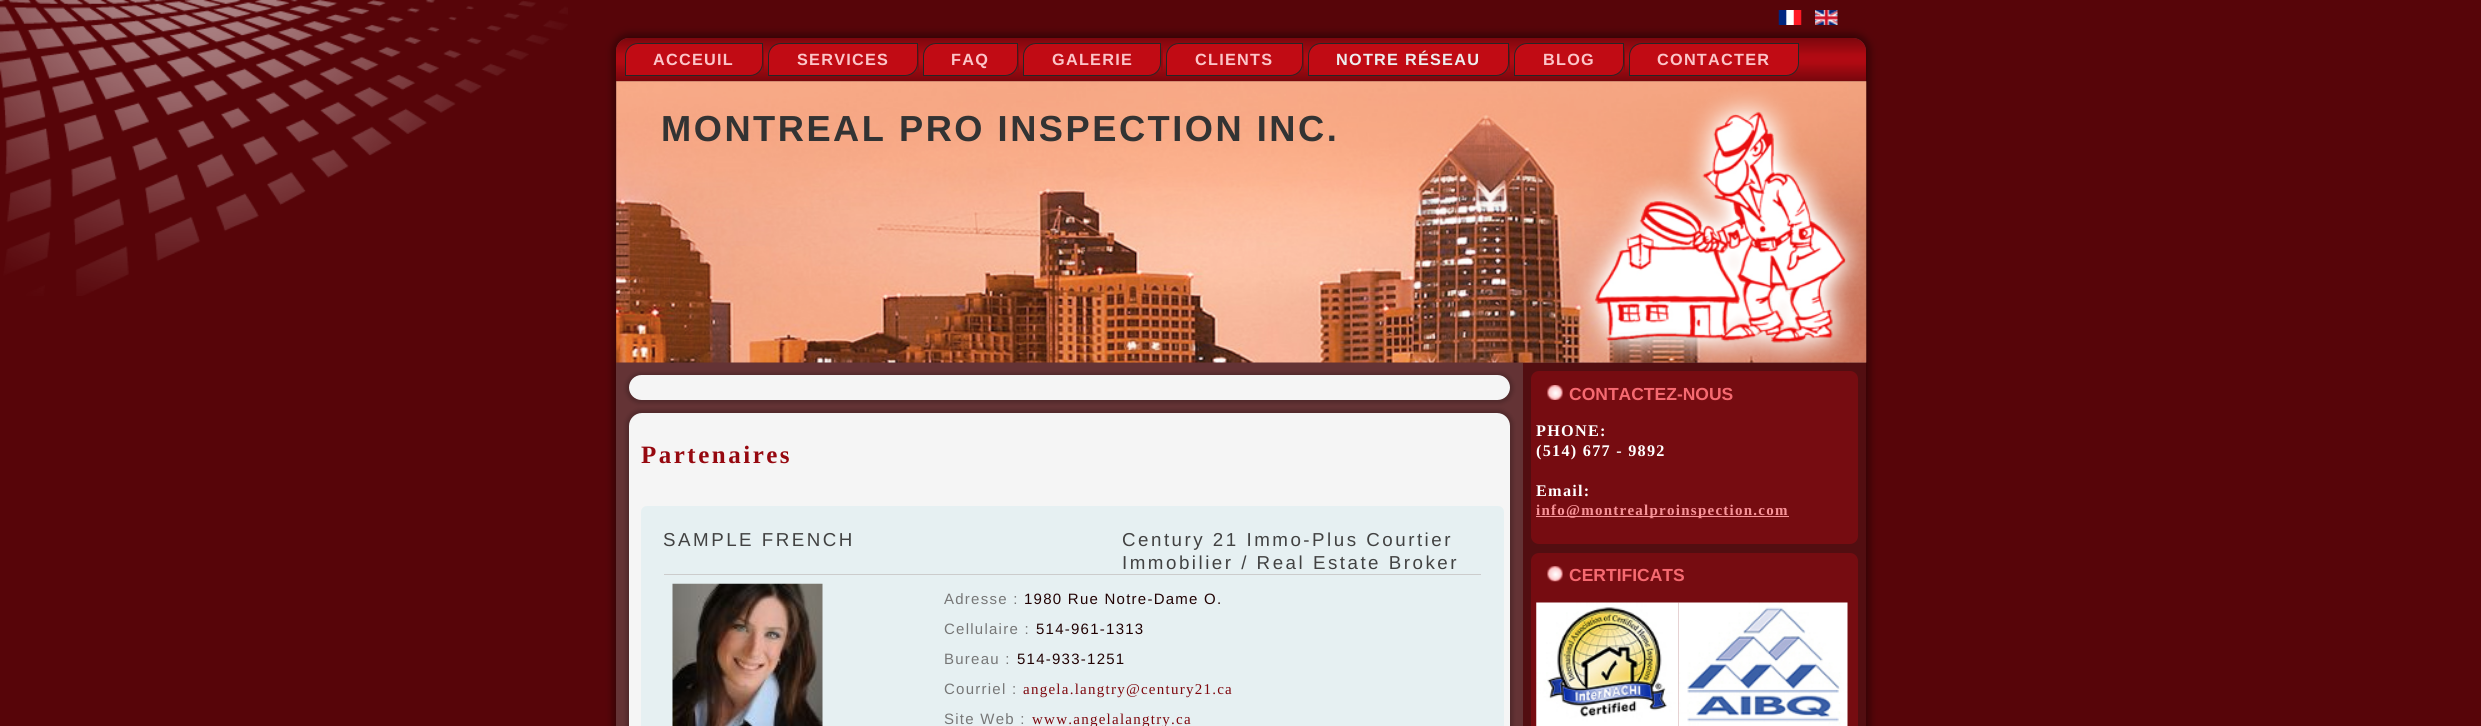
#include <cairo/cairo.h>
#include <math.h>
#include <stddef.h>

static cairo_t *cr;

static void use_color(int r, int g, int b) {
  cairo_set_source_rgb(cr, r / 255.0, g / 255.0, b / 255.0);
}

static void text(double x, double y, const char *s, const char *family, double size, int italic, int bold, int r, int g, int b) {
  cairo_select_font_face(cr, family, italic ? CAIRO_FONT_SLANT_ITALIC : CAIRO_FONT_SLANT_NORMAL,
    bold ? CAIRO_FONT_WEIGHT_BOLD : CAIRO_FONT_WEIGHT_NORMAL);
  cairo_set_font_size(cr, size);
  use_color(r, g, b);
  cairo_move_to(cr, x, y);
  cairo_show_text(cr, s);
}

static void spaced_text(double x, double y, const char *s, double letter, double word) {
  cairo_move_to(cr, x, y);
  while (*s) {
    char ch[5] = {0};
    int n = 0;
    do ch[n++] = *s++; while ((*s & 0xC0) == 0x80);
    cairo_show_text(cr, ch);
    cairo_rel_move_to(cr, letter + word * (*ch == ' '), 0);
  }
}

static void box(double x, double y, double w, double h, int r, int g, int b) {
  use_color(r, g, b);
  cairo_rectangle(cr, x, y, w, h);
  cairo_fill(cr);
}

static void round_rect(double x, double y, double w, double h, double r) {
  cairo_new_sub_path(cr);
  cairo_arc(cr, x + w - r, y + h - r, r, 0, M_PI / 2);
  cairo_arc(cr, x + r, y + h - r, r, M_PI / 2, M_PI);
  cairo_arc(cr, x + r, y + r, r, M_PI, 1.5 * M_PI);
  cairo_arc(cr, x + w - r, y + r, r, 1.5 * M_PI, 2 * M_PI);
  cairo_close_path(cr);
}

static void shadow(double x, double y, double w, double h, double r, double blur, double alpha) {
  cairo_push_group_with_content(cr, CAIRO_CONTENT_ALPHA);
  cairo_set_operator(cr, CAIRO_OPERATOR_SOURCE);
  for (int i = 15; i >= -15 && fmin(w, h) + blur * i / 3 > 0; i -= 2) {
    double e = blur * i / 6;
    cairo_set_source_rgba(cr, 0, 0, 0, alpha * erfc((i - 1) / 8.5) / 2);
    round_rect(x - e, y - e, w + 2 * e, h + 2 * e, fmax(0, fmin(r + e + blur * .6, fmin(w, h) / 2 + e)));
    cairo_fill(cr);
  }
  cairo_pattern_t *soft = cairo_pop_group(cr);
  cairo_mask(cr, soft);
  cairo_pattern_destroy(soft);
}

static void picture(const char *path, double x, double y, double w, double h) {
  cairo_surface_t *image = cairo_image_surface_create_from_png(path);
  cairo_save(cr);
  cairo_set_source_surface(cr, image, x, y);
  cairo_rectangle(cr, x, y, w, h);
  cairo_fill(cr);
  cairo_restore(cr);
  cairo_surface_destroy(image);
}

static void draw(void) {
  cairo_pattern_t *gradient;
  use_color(87, 5, 9);
  cairo_paint(cr);
  picture("img_01.png", 0, 0, 568, 296);
  cairo_save(cr);
  cairo_set_fill_rule(cr, CAIRO_FILL_RULE_EVEN_ODD);
  cairo_new_path(cr);
  cairo_move_to(cr, 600, 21);
  cairo_line_to(cr, 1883, 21);
  cairo_line_to(cr, 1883, 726);
  cairo_line_to(cr, 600, 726);
  cairo_close_path(cr);
  cairo_move_to(cr, 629, 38);
  cairo_line_to(cr, 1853, 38);
  cairo_curve_to(cr, 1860, 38, 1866, 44, 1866, 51);
  cairo_line_to(cr, 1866, 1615);
  cairo_curve_to(cr, 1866, 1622, 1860, 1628, 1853, 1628);
  cairo_line_to(cr, 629, 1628);
  cairo_curve_to(cr, 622, 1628, 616, 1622, 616, 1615);
  cairo_line_to(cr, 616, 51);
  cairo_curve_to(cr, 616, 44, 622, 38, 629, 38);
  cairo_close_path(cr);
  cairo_clip(cr);
  use_color(0, 0, 0);
  shadow(613, 34, 1257, 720, 16, 4, 0.4);
  cairo_restore(cr);
  cairo_set_source_rgba(cr, 0.478, 0.478, 0.478, 0.4);
  round_rect(616, 38, 1250, 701, 13);
  cairo_fill(cr);
  gradient = cairo_pattern_create_linear(1241, 37, 1241, 81);
  cairo_pattern_add_color_stop_rgba(gradient, 0, 0.471, 0.027, 0.051, 1);
  cairo_pattern_add_color_stop_rgba(gradient, 0.4, 0.682, 0.039, 0.071, 1);
  cairo_pattern_add_color_stop_rgba(gradient, 0.5, 0.698, 0.039, 0.075, 1);
  cairo_pattern_add_color_stop_rgba(gradient, 0.6, 0.682, 0.039, 0.071, 1);
  cairo_pattern_add_color_stop_rgba(gradient, 1, 0.471, 0.027, 0.051, 1);
  cairo_set_source(cr, gradient);
  cairo_pattern_destroy(gradient);
  cairo_new_path(cr);
  cairo_move_to(cr, 629, 38);
  cairo_line_to(cr, 1853, 38);
  cairo_curve_to(cr, 1860, 38, 1866, 44, 1866, 51);
  cairo_line_to(cr, 1866, 81);
  cairo_line_to(cr, 616, 81);
  cairo_line_to(cr, 616, 51);
  cairo_curve_to(cr, 616, 44, 622, 38, 629, 38);
  cairo_close_path(cr);
  cairo_fill(cr);
  use_color(193, 11, 20);
  cairo_new_path(cr);
  cairo_move_to(cr, 638, 43.5);
  cairo_line_to(cr, 762.5, 43.5);
  cairo_line_to(cr, 762.5, 63);
  cairo_curve_to(cr, 762.5, 70, 757, 75.5, 750, 75.5);
  cairo_line_to(cr, 625.5, 75.5);
  cairo_line_to(cr, 625.5, 56);
  cairo_curve_to(cr, 625.5, 49, 631, 43.5, 638, 43.5);
  cairo_close_path(cr);
  cairo_fill_preserve(cr);
  use_color(38, 38, 38);
  cairo_set_line_width(cr, 1);
  cairo_stroke(cr);
  picture("img_02.png", 762, 47, 2, 24);
  use_color(193, 11, 20);
  cairo_new_path(cr);
  cairo_move_to(cr, 781, 43.5);
  cairo_line_to(cr, 917.5, 43.5);
  cairo_line_to(cr, 917.5, 63);
  cairo_curve_to(cr, 917.5, 70, 912, 75.5, 905, 75.5);
  cairo_line_to(cr, 768.5, 75.5);
  cairo_line_to(cr, 768.5, 56);
  cairo_curve_to(cr, 768.5, 49, 774, 43.5, 781, 43.5);
  cairo_close_path(cr);
  cairo_fill_preserve(cr);
  use_color(38, 38, 38);
  cairo_stroke(cr);
  picture("img_02.png", 917, 47, 2, 24);
  use_color(193, 11, 20);
  cairo_new_path(cr);
  cairo_move_to(cr, 936, 43.5);
  cairo_line_to(cr, 1017.5, 43.5);
  cairo_line_to(cr, 1017.5, 63);
  cairo_curve_to(cr, 1017.5, 70, 1012, 75.5, 1005, 75.5);
  cairo_line_to(cr, 923.5, 75.5);
  cairo_line_to(cr, 923.5, 56);
  cairo_curve_to(cr, 923.5, 49, 929, 43.5, 936, 43.5);
  cairo_close_path(cr);
  cairo_fill_preserve(cr);
  use_color(38, 38, 38);
  cairo_stroke(cr);
  picture("img_02.png", 1017, 47, 2, 24);
  use_color(193, 11, 20);
  cairo_new_path(cr);
  cairo_move_to(cr, 1036, 43.5);
  cairo_line_to(cr, 1160.5, 43.5);
  cairo_line_to(cr, 1160.5, 63);
  cairo_curve_to(cr, 1160.5, 70, 1155, 75.5, 1148, 75.5);
  cairo_line_to(cr, 1023.5, 75.5);
  cairo_line_to(cr, 1023.5, 56);
  cairo_curve_to(cr, 1023.5, 49, 1029, 43.5, 1036, 43.5);
  cairo_close_path(cr);
  cairo_fill_preserve(cr);
  use_color(38, 38, 38);
  cairo_stroke(cr);
  picture("img_03.png", 1161, 47, 2, 24);
  use_color(193, 11, 20);
  cairo_new_path(cr);
  cairo_move_to(cr, 1179, 43.5);
  cairo_line_to(cr, 1302.5, 43.5);
  cairo_line_to(cr, 1302.5, 63);
  cairo_curve_to(cr, 1302.5, 70, 1297, 75.5, 1290, 75.5);
  cairo_line_to(cr, 1166.5, 75.5);
  cairo_line_to(cr, 1166.5, 56);
  cairo_curve_to(cr, 1166.5, 49, 1172, 43.5, 1179, 43.5);
  cairo_close_path(cr);
  cairo_fill_preserve(cr);
  use_color(38, 38, 38);
  cairo_stroke(cr);
  picture("img_02.png", 1302, 47, 2, 24);
  use_color(193, 11, 20);
  cairo_new_path(cr);
  cairo_move_to(cr, 1321, 43.5);
  cairo_line_to(cr, 1508.5, 43.5);
  cairo_line_to(cr, 1508.5, 63);
  cairo_curve_to(cr, 1508.5, 70, 1503, 75.5, 1496, 75.5);
  cairo_line_to(cr, 1308.5, 75.5);
  cairo_line_to(cr, 1308.5, 56);
  cairo_curve_to(cr, 1308.5, 49, 1314, 43.5, 1321, 43.5);
  cairo_close_path(cr);
  cairo_fill_preserve(cr);
  use_color(38, 38, 38);
  cairo_stroke(cr);
  picture("img_04.png", 1508, 47, 2, 24);
  use_color(193, 11, 20);
  cairo_new_path(cr);
  cairo_move_to(cr, 1527, 43.5);
  cairo_line_to(cr, 1623.5, 43.5);
  cairo_line_to(cr, 1623.5, 63);
  cairo_curve_to(cr, 1623.5, 70, 1618, 75.5, 1611, 75.5);
  cairo_line_to(cr, 1514.5, 75.5);
  cairo_line_to(cr, 1514.5, 56);
  cairo_curve_to(cr, 1514.5, 49, 1520, 43.5, 1527, 43.5);
  cairo_close_path(cr);
  cairo_fill_preserve(cr);
  use_color(38, 38, 38);
  cairo_stroke(cr);
  picture("img_04.png", 1623, 47, 2, 24);
  use_color(193, 11, 20);
  cairo_new_path(cr);
  cairo_move_to(cr, 1642, 43.5);
  cairo_line_to(cr, 1798.5, 43.5);
  cairo_line_to(cr, 1798.5, 63);
  cairo_curve_to(cr, 1798.5, 70, 1793, 75.5, 1786, 75.5);
  cairo_line_to(cr, 1629.5, 75.5);
  cairo_line_to(cr, 1629.5, 56);
  cairo_curve_to(cr, 1629.5, 49, 1635, 43.5, 1642, 43.5);
  cairo_close_path(cr);
  cairo_fill_preserve(cr);
  use_color(38, 38, 38);
  cairo_stroke(cr);
  picture("img_05.png", 616, 81, 1251, 282);
  picture("img_06.png", 1778, 10, 24, 15);
  picture("img_07.png", 1815, 10, 23, 15);
  use_color(0, 0, 0);
  shadow(626, 373, 887, 30, 15, 2, 0.2);
  use_color(245, 245, 245);
  round_rect(629, 375, 881, 25, 12.5);
  cairo_fill(cr);
  use_color(0, 0, 0);
  shadow(626, 410, 887, 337, 15, 2, 0.2);
  use_color(245, 245, 245);
  round_rect(629, 413, 881, 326, 13);
  cairo_fill(cr);
  use_color(230, 240, 242);
  round_rect(641, 506, 863, 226, 6);
  cairo_fill(cr);
  box(664, 574, 817, 1, 204, 204, 204);
  picture("img_08.png", 672, 583, 151, 143);
  box(1523, 363, 343, 363, 82, 14, 17);
  use_color(118, 12, 17);
  round_rect(1531, 371, 327, 173, 8);
  cairo_fill(cr);
  picture("img_09.png", 1547, 385, 16, 15);
  box(1536, 516, 253, 1, 249, 148, 153);
  use_color(118, 12, 17);
  round_rect(1531, 553, 327, 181, 8);
  cairo_fill(cr);
  picture("img_10.png", 1547, 566, 16, 16);
  picture("img_11.png", 1536, 602, 143, 124);
  picture("img_12.png", 1678, 602, 170, 124);
  cairo_select_font_face(cr, "Liberation Sans", CAIRO_FONT_SLANT_NORMAL, CAIRO_FONT_WEIGHT_BOLD);
  cairo_set_font_size(cr, 16.25);
  use_color(252, 197, 200);
  spaced_text(653, 65, "ACCEUIL", 1.25, 0);
  spaced_text(797, 65, "SERVICES", 1.25, 0);
  spaced_text(951, 65, "FAQ", 1.25, 0);
  spaced_text(1052, 65, "GALERIE", 1.25, 0);
  spaced_text(1195, 65, "CLIENTS", 1.25, 0);
  use_color(237, 237, 237);
  spaced_text(1336, 65, "NOTRE RÉSEAU", 1.25, 0);
  use_color(252, 197, 200);
  spaced_text(1543, 65, "BLOG", 1.25, 0);
  spaced_text(1657, 65, "CONTACTER", 1.25, 0);
  cairo_set_font_size(cr, 36.25);
  use_color(51, 51, 51);
  spaced_text(661, 141, "MONTREAL PRO INSPECTION INC.", 2.5, 0);
  cairo_select_font_face(cr, "Liberation Serif", CAIRO_FONT_SLANT_NORMAL, CAIRO_FONT_WEIGHT_BOLD);
  cairo_set_font_size(cr, 25);
  use_color(150, 8, 15);
  spaced_text(641, 463, "Partenaires", 2.5, 0);
  cairo_select_font_face(cr, "Liberation Sans", CAIRO_FONT_SLANT_NORMAL, CAIRO_FONT_WEIGHT_NORMAL);
  cairo_set_font_size(cr, 18.75);
  use_color(66, 66, 66);
  spaced_text(663, 546, "SAMPLE FRENCH", 2.5, 0);
  spaced_text(1122, 546, "Century 21 Immo-Plus Courtier", 2.5, 0);
  spaced_text(1122, 569, "Immobilier / Real Estate Broker", 2.5, 0);
  cairo_set_font_size(cr, 15);
  use_color(119, 119, 119);
  spaced_text(944, 604, "Adresse :", 1.25, 0);
  use_color(34, 2, 3);
  spaced_text(1024, 604, "1980 Rue Notre-Dame O.", 1.25, 0);
  use_color(119, 119, 119);
  spaced_text(944, 634, "Cellulaire :", 1.25, 0);
  use_color(34, 2, 3);
  spaced_text(1036, 634, "514-961-1313", 1.25, 0);
  use_color(119, 119, 119);
  spaced_text(944, 664, "Bureau :", 1.25, 0);
  use_color(34, 2, 3);
  spaced_text(1017, 664, "514-933-1251", 1.25, 0);
  use_color(119, 119, 119);
  spaced_text(944, 694, "Courriel :", 1.25, 0);
  cairo_select_font_face(cr, "Liberation Serif", CAIRO_FONT_SLANT_NORMAL, CAIRO_FONT_WEIGHT_NORMAL);
  use_color(126, 7, 13);
  spaced_text(1023, 694, "angela.langtry@century21.ca", 1.25, 0);
  cairo_select_font_face(cr, "Liberation Sans", CAIRO_FONT_SLANT_NORMAL, CAIRO_FONT_WEIGHT_NORMAL);
  use_color(119, 119, 119);
  spaced_text(944, 724, "Site Web :", 1.25, 0);
  cairo_select_font_face(cr, "Liberation Serif", CAIRO_FONT_SLANT_NORMAL, CAIRO_FONT_WEIGHT_NORMAL);
  use_color(126, 7, 13);
  spaced_text(1032, 724, "www.angelalangtry.ca", 1.25, 0);
  text(1569, 400, "CONTACTEZ-NOUS", "Liberation Sans", 17.5, 0, 1, 246, 106, 113);
  cairo_select_font_face(cr, "Liberation Serif", CAIRO_FONT_SLANT_NORMAL, CAIRO_FONT_WEIGHT_BOLD);
  cairo_set_font_size(cr, 16.25);
  use_color(255, 255, 255);
  spaced_text(1536, 436, "PHONE:", 1.25, 0);
  spaced_text(1536, 456, "(514) 677 - 9892", 1.25, 0);
  spaced_text(1536, 496, "Email:", 1.25, 0);
  cairo_set_font_size(cr, 15);
  use_color(249, 148, 153);
  spaced_text(1536, 515, "info@montrealproinspection.com", 1.25, 0);
  text(1569, 581, "CERTIFICATS", "Liberation Sans", 17.5, 0, 1, 246, 106, 113);
}

int main(void) {
  cairo_surface_t *surface = cairo_image_surface_create(CAIRO_FORMAT_RGB24, 2481, 726);
  cr = cairo_create(surface);
  cairo_font_options_t *options = cairo_font_options_create();
  cairo_font_options_set_hint_metrics(options, CAIRO_HINT_METRICS_OFF);
  cairo_font_options_set_hint_style(options, CAIRO_HINT_STYLE_NONE);
  cairo_set_font_options(cr, options);
  cairo_set_miter_limit(cr, 4);
  draw();
  cairo_surface_write_to_png(surface, "out.png");
  cairo_font_options_destroy(options);
  cairo_destroy(cr);
  cairo_surface_destroy(surface);
  return 0;
}
